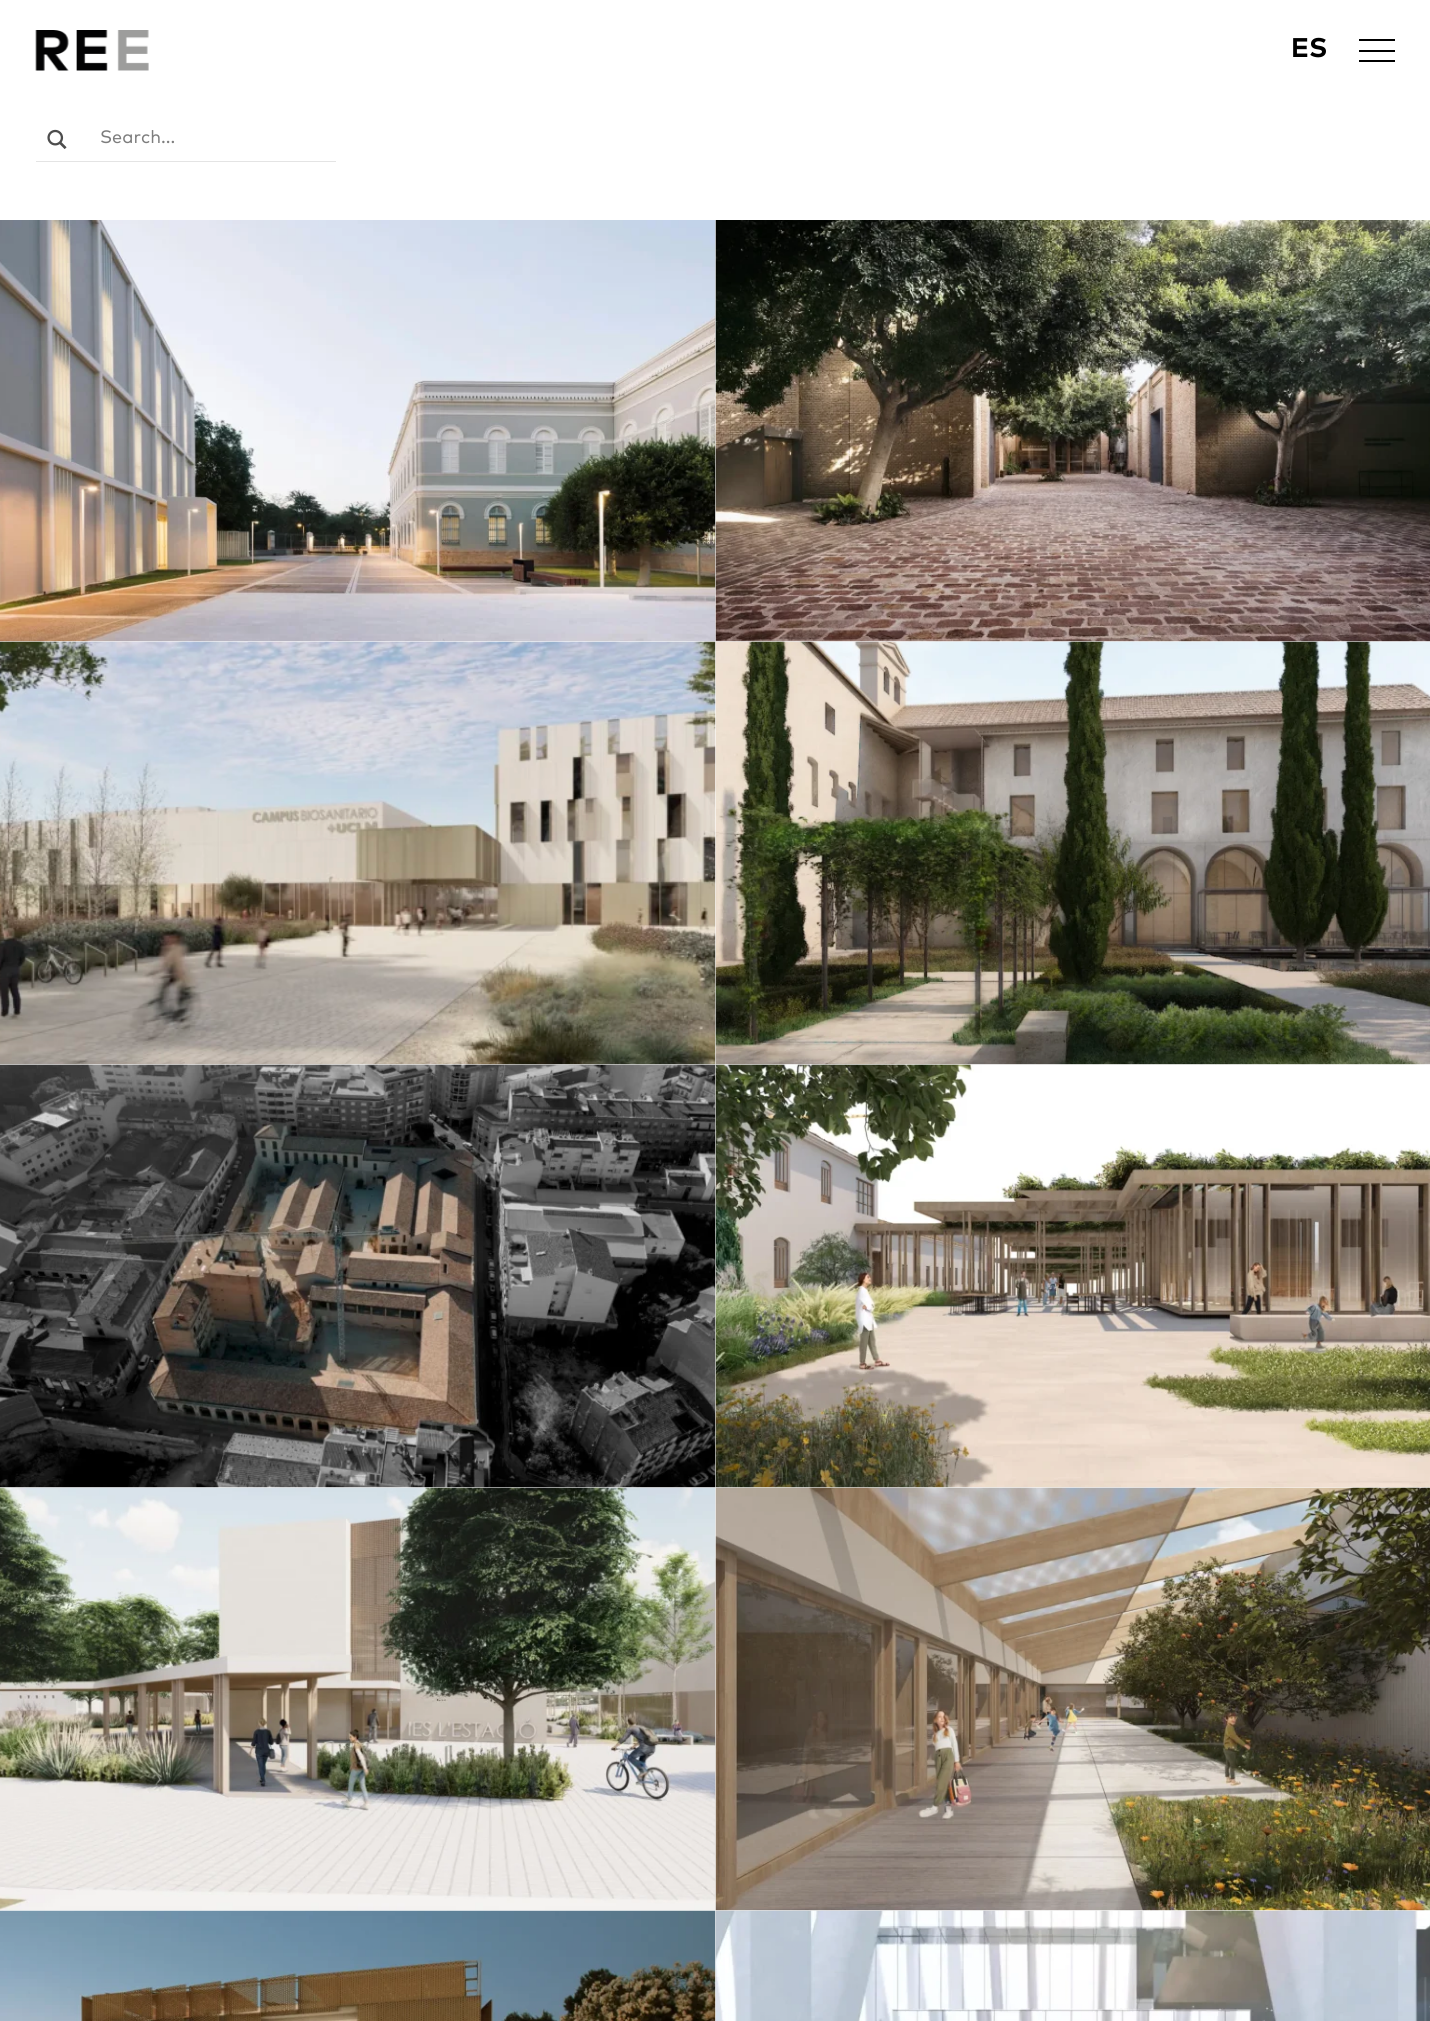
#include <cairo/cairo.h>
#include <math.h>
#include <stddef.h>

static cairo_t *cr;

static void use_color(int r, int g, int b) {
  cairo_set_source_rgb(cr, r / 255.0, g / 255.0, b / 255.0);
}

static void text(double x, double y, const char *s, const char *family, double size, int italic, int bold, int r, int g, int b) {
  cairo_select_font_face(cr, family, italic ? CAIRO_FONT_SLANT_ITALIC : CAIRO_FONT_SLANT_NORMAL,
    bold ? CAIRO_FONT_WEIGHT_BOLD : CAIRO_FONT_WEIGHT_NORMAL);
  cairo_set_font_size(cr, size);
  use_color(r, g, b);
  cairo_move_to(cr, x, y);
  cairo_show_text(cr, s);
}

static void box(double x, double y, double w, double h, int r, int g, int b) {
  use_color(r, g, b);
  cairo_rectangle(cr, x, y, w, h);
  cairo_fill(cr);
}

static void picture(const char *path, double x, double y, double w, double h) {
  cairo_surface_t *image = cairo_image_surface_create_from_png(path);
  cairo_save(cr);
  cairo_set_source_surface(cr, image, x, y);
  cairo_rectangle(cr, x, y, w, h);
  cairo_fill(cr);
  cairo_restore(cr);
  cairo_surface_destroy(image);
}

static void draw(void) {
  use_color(255, 255, 255);
  cairo_paint(cr);
  picture("img_01.png", 35, 30, 114, 41);
  box(1359, 39, 36, 2, 0, 0, 0);
  box(1359, 50, 36, 2, 0, 0, 0);
  box(1359, 60, 36, 2, 0, 0, 0);
  box(36, 161, 300, 1, 228, 228, 228);
  picture("img_02.png", 47, 129, 20, 20);
  picture("img_03.png", 0, 220, 716, 422);
  picture("img_04.png", 715, 220, 715, 422);
  picture("img_05.png", 0, 641, 716, 424);
  picture("img_06.png", 715, 641, 715, 424);
  picture("img_07.png", 0, 1064, 716, 424);
  picture("img_08.png", 715, 1064, 715, 424);
  picture("img_09.png", 0, 1487, 716, 424);
  picture("img_10.png", 715, 1487, 715, 424);
  picture("img_11.png", 0, 1910, 716, 111);
  picture("img_12.png", 715, 1910, 715, 111);
  text(1291, 57, "ES", "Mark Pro", 27, 0, 1, 0, 0, 0);
  text(100, 143, "Search...", "Mark Pro", 18, 0, 0, 125, 125, 125);
}

int main(void) {
  cairo_surface_t *surface = cairo_image_surface_create(CAIRO_FORMAT_RGB24, 1430, 2021);
  cr = cairo_create(surface);
  cairo_font_options_t *options = cairo_font_options_create();
  cairo_font_options_set_hint_metrics(options, CAIRO_HINT_METRICS_OFF);
  cairo_font_options_set_hint_style(options, CAIRO_HINT_STYLE_NONE);
  cairo_set_font_options(cr, options);
  cairo_set_miter_limit(cr, 4);
  draw();
  cairo_surface_write_to_png(surface, "out.png");
  cairo_font_options_destroy(options);
  cairo_destroy(cr);
  cairo_surface_destroy(surface);
  return 0;
}
